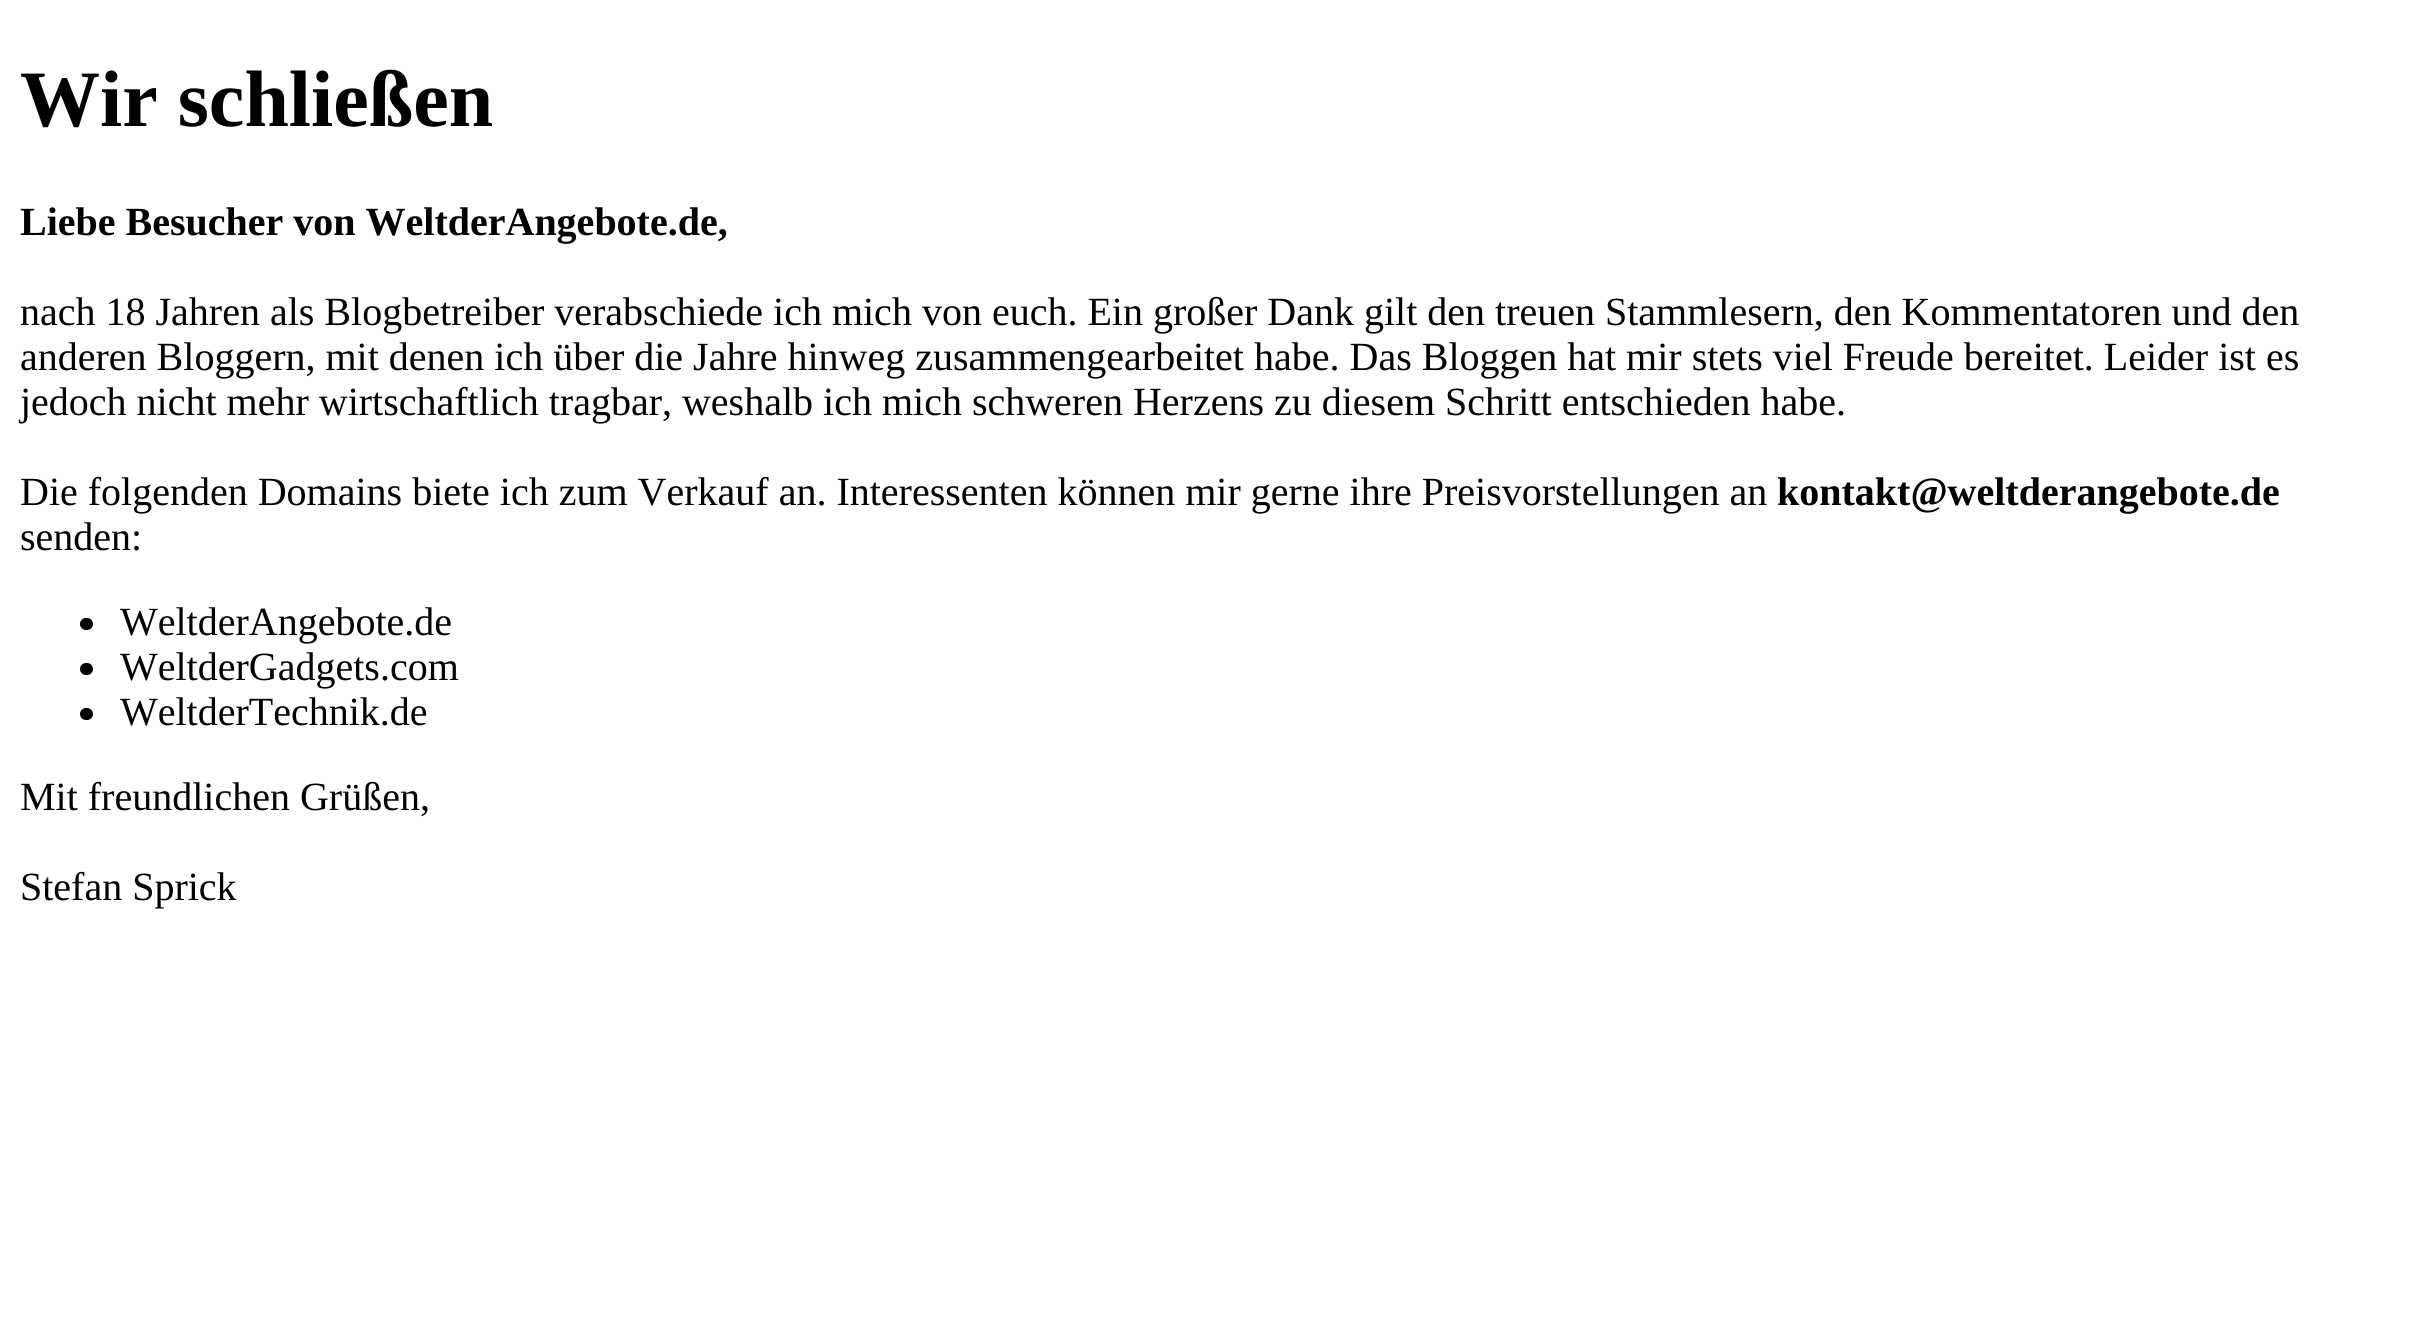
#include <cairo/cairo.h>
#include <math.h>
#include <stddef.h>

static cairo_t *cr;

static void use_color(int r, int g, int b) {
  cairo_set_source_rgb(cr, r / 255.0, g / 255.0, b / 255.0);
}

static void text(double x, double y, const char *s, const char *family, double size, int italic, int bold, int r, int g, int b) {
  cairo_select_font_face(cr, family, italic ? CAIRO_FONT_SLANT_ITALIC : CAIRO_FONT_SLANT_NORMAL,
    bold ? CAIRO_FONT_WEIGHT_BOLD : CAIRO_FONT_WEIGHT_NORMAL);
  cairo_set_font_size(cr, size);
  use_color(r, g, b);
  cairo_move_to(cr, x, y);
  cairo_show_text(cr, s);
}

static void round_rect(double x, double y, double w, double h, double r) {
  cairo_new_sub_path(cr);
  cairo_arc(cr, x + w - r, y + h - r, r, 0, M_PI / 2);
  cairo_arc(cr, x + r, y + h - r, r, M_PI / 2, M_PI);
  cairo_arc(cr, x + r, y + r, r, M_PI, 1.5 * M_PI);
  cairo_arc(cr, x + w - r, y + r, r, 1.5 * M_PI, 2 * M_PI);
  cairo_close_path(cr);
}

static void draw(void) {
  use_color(255, 255, 255);
  cairo_paint(cr);
  use_color(0, 0, 0);
  round_rect(80, 618, 13, 12, 6);
  cairo_fill(cr);
  round_rect(80, 663, 13, 12, 6);
  cairo_fill(cr);
  round_rect(80, 708, 13, 12, 6);
  cairo_fill(cr);
  text(20, 126, "Wir schließen", "Liberation Serif", 80, 0, 1, 0, 0, 0);
  text(20, 235, "Liebe Besucher von WeltderAngebote.de,", "Liberation Serif", 40, 0, 1, 0, 0, 0);
  text(20, 325, "nach 18 Jahren als Blogbetreiber verabschiede ich mich von euch. Ein großer Dank gilt den treuen Stammlesern, den Kommentatoren und den", "Liberation Serif", 40, 0, 0, 0, 0, 0);
  text(20, 370, "anderen Bloggern, mit denen ich über die Jahre hinweg zusammengearbeitet habe. Das Bloggen hat mir stets viel Freude bereitet. Leider ist es", "Liberation Serif", 40, 0, 0, 0, 0, 0);
  text(20, 415, "jedoch nicht mehr wirtschaftlich tragbar, weshalb ich mich schweren Herzens zu diesem Schritt entschieden habe.", "Liberation Serif", 40, 0, 0, 0, 0, 0);
  text(20, 505, "Die folgenden Domains biete ich zum Verkauf an. Interessenten können mir gerne ihre Preisvorstellungen an", "Liberation Serif", 40, 0, 0, 0, 0, 0);
  text(1777, 505, "kontakt@weltderangebote.de", "Liberation Serif", 40, 0, 1, 0, 0, 0);
  text(20, 550, "senden:", "Liberation Serif", 40, 0, 0, 0, 0, 0);
  text(120, 635, "WeltderAngebote.de", "Liberation Serif", 40, 0, 0, 0, 0, 0);
  text(120, 680, "WeltderGadgets.com", "Liberation Serif", 40, 0, 0, 0, 0, 0);
  text(120, 725, "WeltderTechnik.de", "Liberation Serif", 40, 0, 0, 0, 0, 0);
  text(20, 810, "Mit freundlichen Grüßen,", "Liberation Serif", 40, 0, 0, 0, 0, 0);
  text(20, 900, "Stefan Sprick", "Liberation Serif", 40, 0, 0, 0, 0, 0);
}

int main(void) {
  cairo_surface_t *surface = cairo_image_surface_create(CAIRO_FORMAT_RGB24, 2421, 1333);
  cr = cairo_create(surface);
  cairo_font_options_t *options = cairo_font_options_create();
  cairo_font_options_set_hint_metrics(options, CAIRO_HINT_METRICS_OFF);
  cairo_font_options_set_hint_style(options, CAIRO_HINT_STYLE_NONE);
  cairo_set_font_options(cr, options);
  cairo_set_miter_limit(cr, 4);
  draw();
  cairo_surface_write_to_png(surface, "out.png");
  cairo_font_options_destroy(options);
  cairo_destroy(cr);
  cairo_surface_destroy(surface);
  return 0;
}
